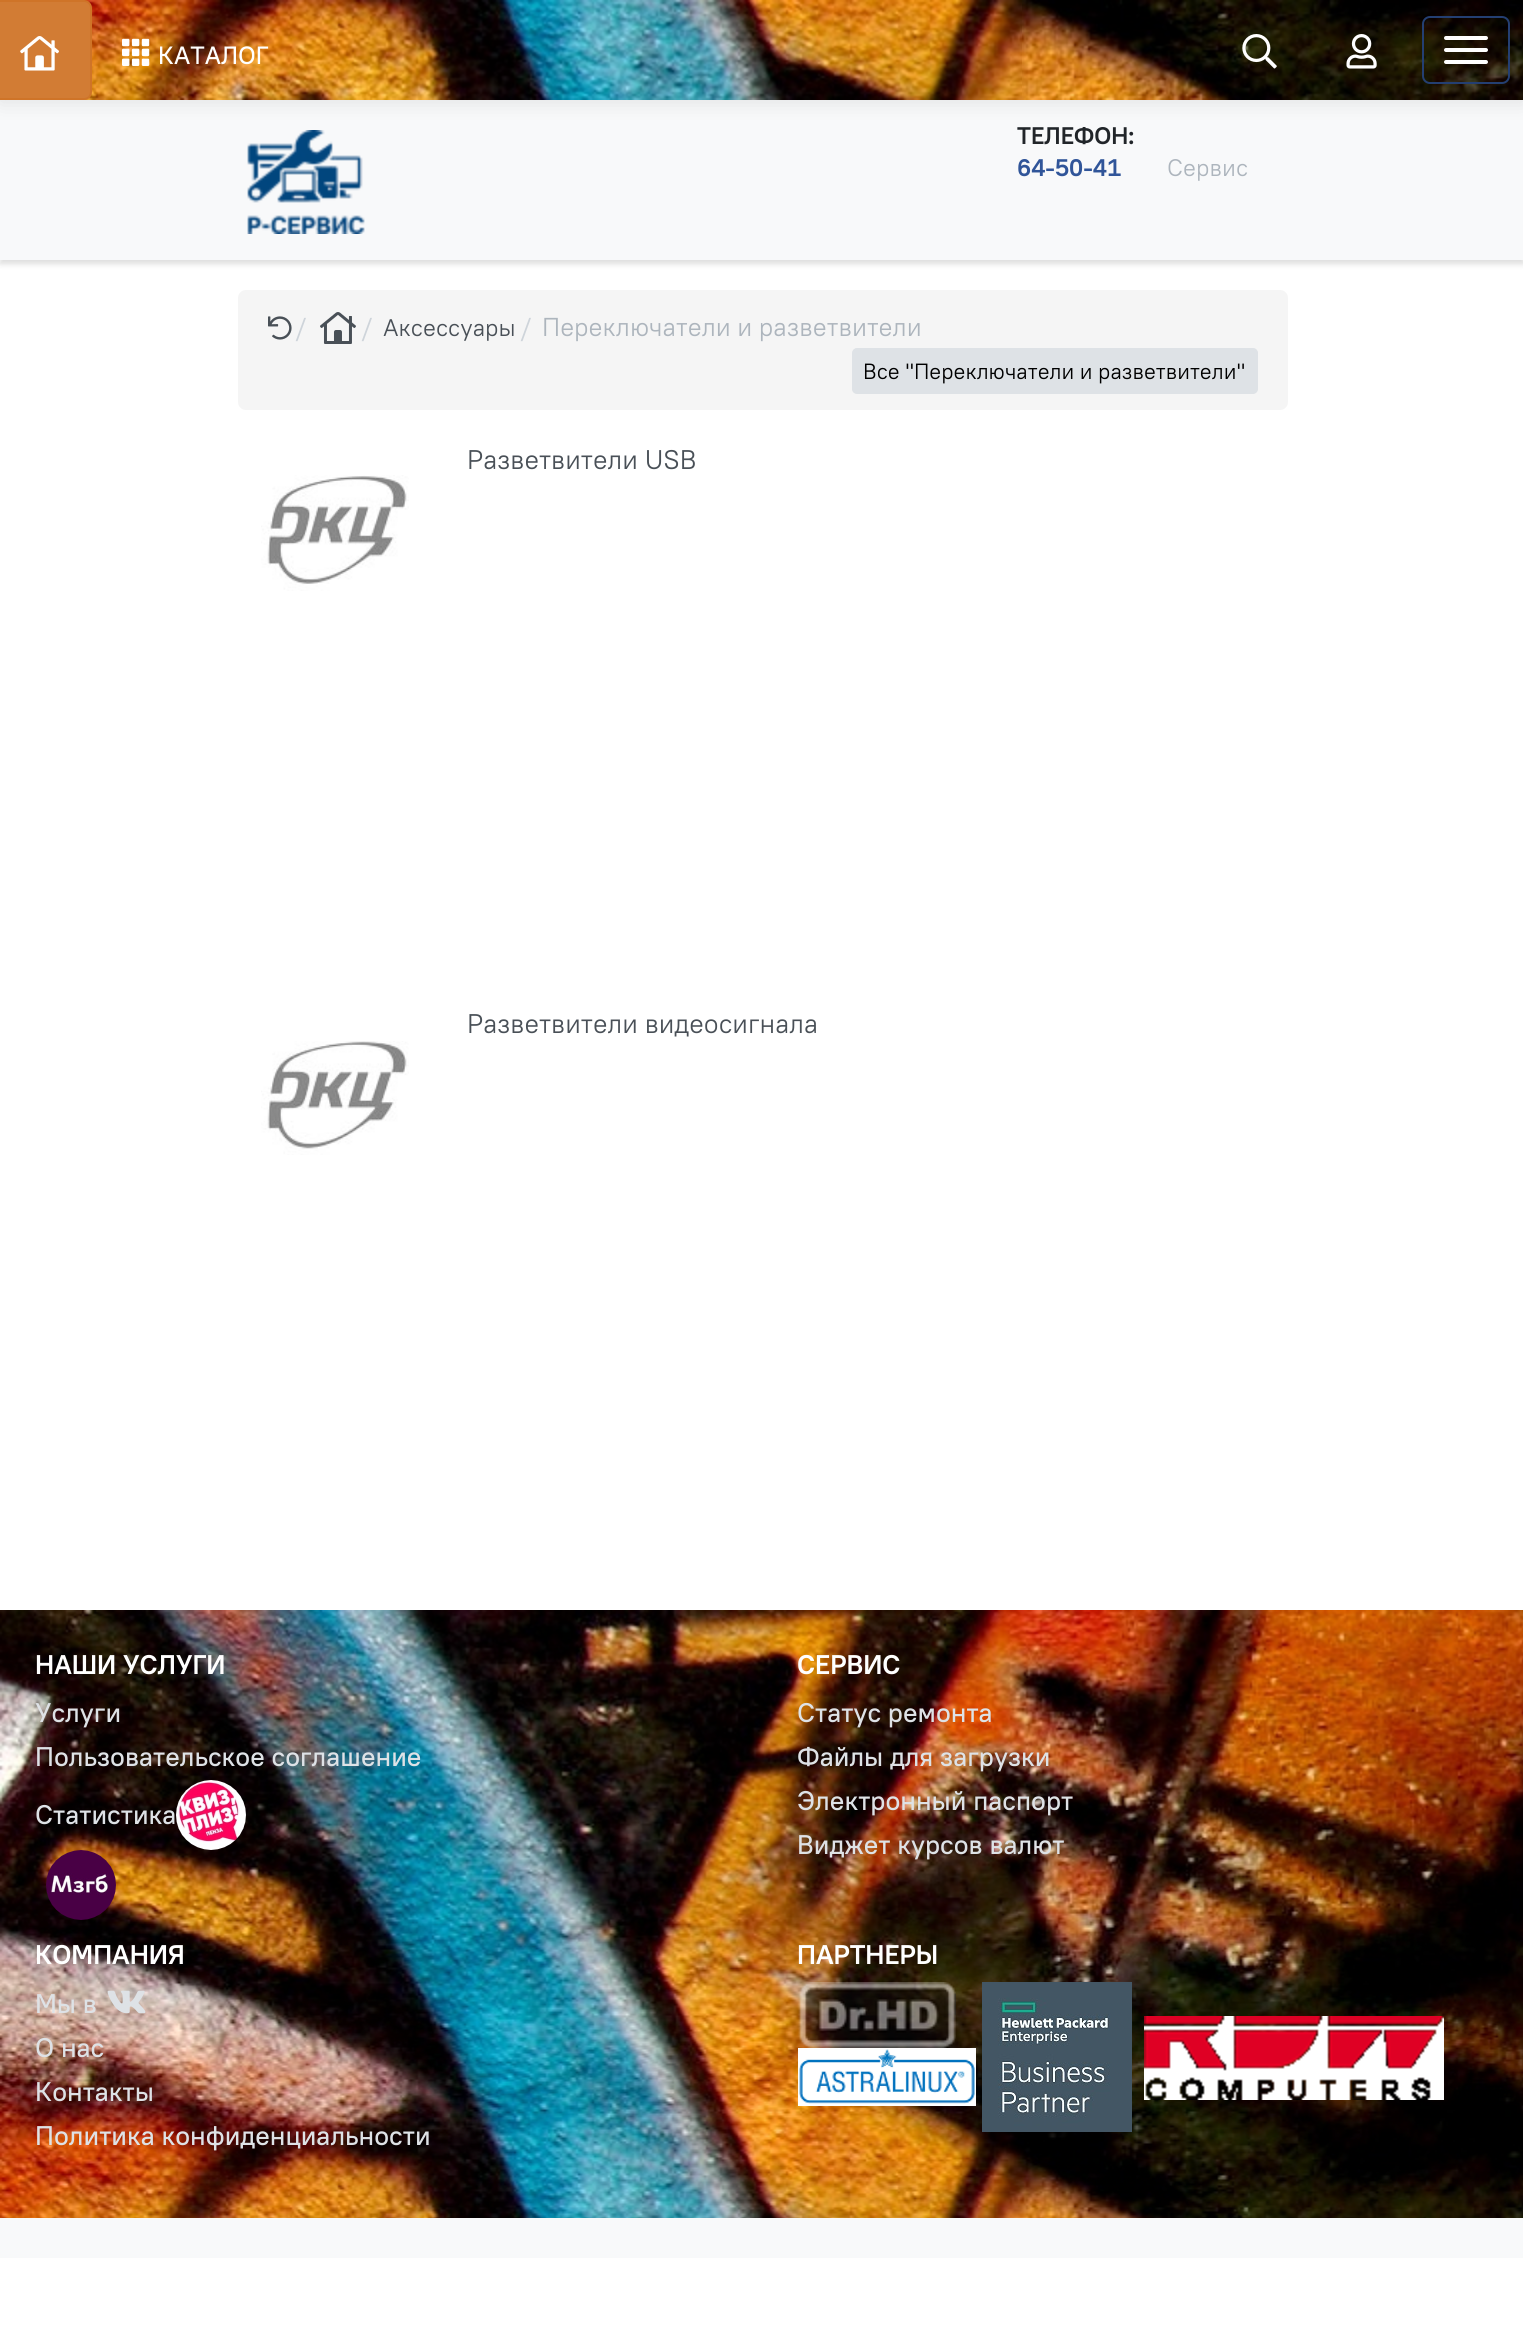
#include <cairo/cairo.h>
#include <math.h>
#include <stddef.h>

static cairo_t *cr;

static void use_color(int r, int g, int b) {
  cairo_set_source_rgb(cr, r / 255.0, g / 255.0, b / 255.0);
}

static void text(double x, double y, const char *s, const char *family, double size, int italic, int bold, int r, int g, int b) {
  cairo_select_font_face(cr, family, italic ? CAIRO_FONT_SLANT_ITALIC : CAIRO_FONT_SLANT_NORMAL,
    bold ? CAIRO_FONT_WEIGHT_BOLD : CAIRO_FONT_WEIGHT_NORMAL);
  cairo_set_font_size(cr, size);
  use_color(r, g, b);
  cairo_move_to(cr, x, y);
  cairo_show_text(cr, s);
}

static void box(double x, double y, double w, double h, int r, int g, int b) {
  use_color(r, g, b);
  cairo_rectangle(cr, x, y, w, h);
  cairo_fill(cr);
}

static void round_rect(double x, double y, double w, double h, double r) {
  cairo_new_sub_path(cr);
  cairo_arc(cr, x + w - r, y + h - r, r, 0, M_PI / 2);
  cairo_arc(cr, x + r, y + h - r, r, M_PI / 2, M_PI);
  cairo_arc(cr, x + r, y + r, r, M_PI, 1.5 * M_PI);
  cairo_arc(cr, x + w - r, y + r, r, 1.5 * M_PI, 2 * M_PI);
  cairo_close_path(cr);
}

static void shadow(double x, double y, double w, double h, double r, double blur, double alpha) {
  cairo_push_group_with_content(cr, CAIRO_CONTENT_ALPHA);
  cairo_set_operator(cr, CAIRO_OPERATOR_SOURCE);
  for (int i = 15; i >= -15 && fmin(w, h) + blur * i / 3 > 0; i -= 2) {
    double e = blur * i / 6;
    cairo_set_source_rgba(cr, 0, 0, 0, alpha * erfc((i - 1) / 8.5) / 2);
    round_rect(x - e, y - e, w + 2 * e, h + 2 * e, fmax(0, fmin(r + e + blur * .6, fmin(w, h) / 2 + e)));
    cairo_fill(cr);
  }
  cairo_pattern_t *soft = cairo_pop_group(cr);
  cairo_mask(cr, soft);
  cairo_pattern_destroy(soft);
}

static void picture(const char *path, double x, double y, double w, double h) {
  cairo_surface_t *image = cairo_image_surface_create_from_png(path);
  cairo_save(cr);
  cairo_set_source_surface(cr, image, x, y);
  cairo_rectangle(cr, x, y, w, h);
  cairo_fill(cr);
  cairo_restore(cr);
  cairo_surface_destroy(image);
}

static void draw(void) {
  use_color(255, 255, 255);
  cairo_paint(cr);
  use_color(25, 26, 24);
  shadow(0, 4, 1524, 260, 0, 3, 0.15);
  box(0, 100, 1523, 160, 248, 249, 250);
  picture("img_06.png", 247, 130, 118, 104);
  use_color(0, 0, 0);
  shadow(0, 2, 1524, 100, 0, 10, 0.1);
  picture("img_01.png", 84, 0, 1439, 100);
  use_color(210, 124, 52);
  round_rect(-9, 1, 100, 98, 7);
  cairo_fill_preserve(cr);
  use_color(207, 116, 40);
  cairo_stroke(cr);
  picture("img_02.png", 20, 36, 39, 35);
  picture("img_03.png", 122, 38, 28, 28);
  picture("img_04.png", 1242, 34, 35, 35);
  picture("img_05.png", 1346, 34, 31, 35);
  round_rect(1423, 17, 86, 66, 7);
  use_color(36, 63, 114);
  cairo_stroke(cr);
  use_color(255, 255, 255);
  round_rect(1444, 36, 44, 4, 2);
  cairo_fill(cr);
  round_rect(1444, 48, 44, 4, 2);
  cairo_fill(cr);
  round_rect(1444, 60, 44, 4, 2);
  cairo_fill(cr);
  use_color(245, 245, 245);
  round_rect(238, 290, 1050, 120, 8);
  cairo_fill(cr);
  picture("img_07.png", 268, 316, 24, 24);
  picture("img_08.png", 320, 312, 36, 32);
  use_color(222, 226, 230);
  round_rect(853, 349, 404, 44, 4);
  cairo_fill_preserve(cr);
  cairo_stroke(cr);
  picture("img_09.png", 261, 475, 148, 116);
  picture("img_10.png", 261, 1041, 148, 114);
  picture("img_11.png", 0, 1610, 1523, 608);
  picture("img_12.png", 176, 1780, 70, 70);
  picture("img_13.png", 46, 1850, 70, 70);
  picture("img_14.png", 107, 1990, 39, 24);
  picture("img_15.png", 798, 1982, 158, 66);
  picture("img_16.png", 798, 2048, 178, 58);
  picture("img_17.png", 982, 1982, 150, 150);
  picture("img_18.png", 1144, 2016, 300, 84);
  box(0, 2218, 1523, 40, 248, 249, 250);
  text(158, 64, "КАТАЛОГ", "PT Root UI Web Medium", 25, 0, 0, 255, 255, 255);
  text(1017, 144, "ТЕЛЕФОН:", "PT Root UI Web", 24, 0, 1, 33, 37, 41);
  text(1017, 176, "64-50-41", "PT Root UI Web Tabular", 24, 0, 1, 48, 85, 153);
  text(1167, 176, "Сервис", "PT Root UI Web", 24, 0, 0, 173, 181, 189);
  text(295, 336, "/", "PT Root UI Web", 25.9, 0, 0, 206, 212, 218);
  text(361, 336, "/", "PT Root UI Web", 25.9, 0, 0, 206, 212, 218);
  text(383, 336, "Аксессуары", "PT Root UI Web", 24, 0, 0, 73, 80, 87);
  text(520, 336, "/", "PT Root UI Web", 25.9, 0, 0, 206, 212, 218);
  text(542, 336, "Переключатели и разветвители", "PT Root UI Web", 25.9, 0, 0, 173, 181, 189);
  text(863, 379, "Все \"Переключатели и разветвители\"", "PT Root UI Web", 22, 0, 0, 0, 0, 0);
  text(467, 469, "Разветвители USB", "PT Root UI Web", 27, 0, 0, 73, 80, 87);
  text(467, 1033, "Разветвители видеосигнала", "PT Root UI Web", 27, 0, 0, 73, 80, 87);
  text(35, 1674, "НАШИ УСЛУГИ", "PT Root UI Web", 27, 0, 1, 255, 255, 255);
  text(35, 1722, "Услуги", "PT Root UI Web Medium", 27, 0, 0, 222, 226, 230);
  text(35, 1766, "Пользовательское соглашение", "PT Root UI Web Medium", 27, 0, 0, 222, 226, 230);
  text(35, 1824, "Статистика", "PT Root UI Web Medium", 27, 0, 0, 222, 226, 230);
  text(797, 1674, "СЕРВИС", "PT Root UI Web", 27, 0, 1, 255, 255, 255);
  text(797, 1722, "Статус ремонта", "PT Root UI Web Medium", 27, 0, 0, 222, 226, 230);
  text(797, 1766, "Файлы для загрузки", "PT Root UI Web Medium", 27, 0, 0, 222, 226, 230);
  text(797, 1810, "Электронный паспорт", "PT Root UI Web Medium", 27, 0, 0, 222, 226, 230);
  text(797, 1854, "Виджет курсов валют", "PT Root UI Web Medium", 27, 0, 0, 222, 226, 230);
  text(35, 1964, "КОМПАНИЯ", "PT Root UI Web", 27, 0, 1, 255, 255, 255);
  text(35, 2013, "Мы в", "PT Root UI Web Medium", 27, 0, 0, 222, 226, 230);
  text(35, 2057, "О нас", "PT Root UI Web Medium", 27, 0, 0, 222, 226, 230);
  text(35, 2101, "Контакты", "PT Root UI Web Medium", 27, 0, 0, 222, 226, 230);
  text(35, 2145, "Политика конфиденциальности", "PT Root UI Web Medium", 27, 0, 0, 222, 226, 230);
  text(797, 1964, "ПАРТНЕРЫ", "PT Root UI Web", 27, 0, 1, 255, 255, 255);
}

int main(void) {
  cairo_surface_t *surface = cairo_image_surface_create(CAIRO_FORMAT_RGB24, 1523, 2351);
  cr = cairo_create(surface);
  cairo_font_options_t *options = cairo_font_options_create();
  cairo_font_options_set_hint_metrics(options, CAIRO_HINT_METRICS_OFF);
  cairo_font_options_set_hint_style(options, CAIRO_HINT_STYLE_NONE);
  cairo_set_font_options(cr, options);
  cairo_set_miter_limit(cr, 4);
  draw();
  cairo_surface_write_to_png(surface, "out.png");
  cairo_font_options_destroy(options);
  cairo_destroy(cr);
  cairo_surface_destroy(surface);
  return 0;
}
